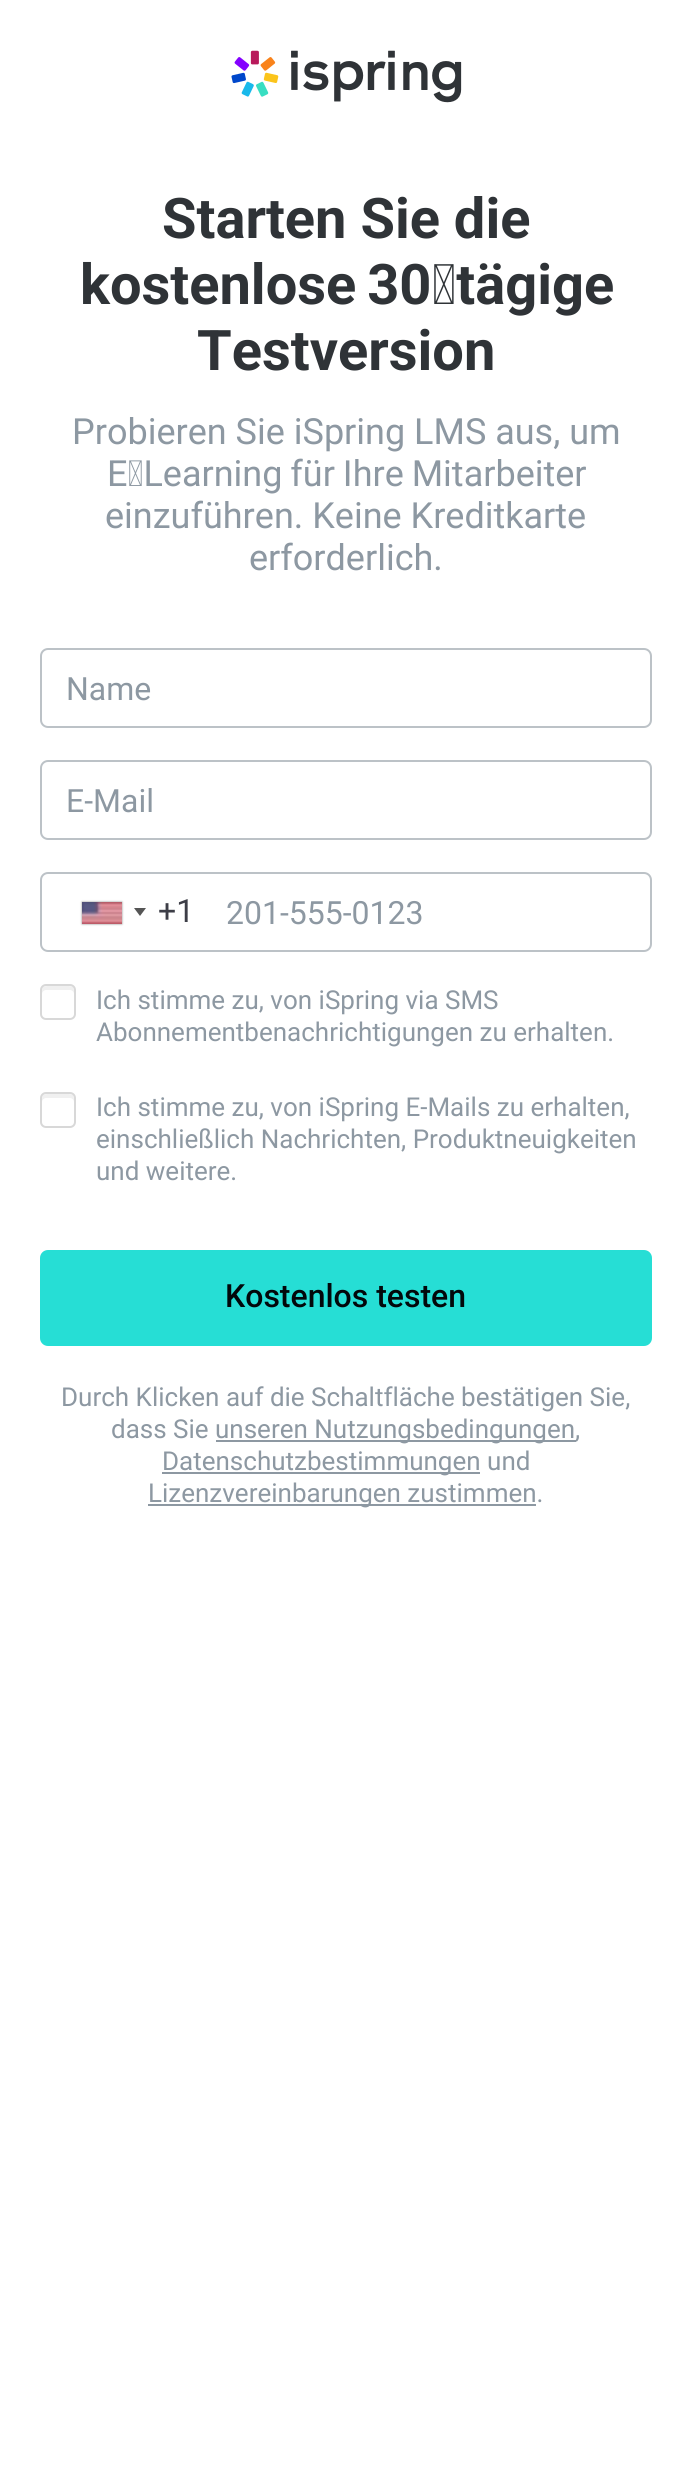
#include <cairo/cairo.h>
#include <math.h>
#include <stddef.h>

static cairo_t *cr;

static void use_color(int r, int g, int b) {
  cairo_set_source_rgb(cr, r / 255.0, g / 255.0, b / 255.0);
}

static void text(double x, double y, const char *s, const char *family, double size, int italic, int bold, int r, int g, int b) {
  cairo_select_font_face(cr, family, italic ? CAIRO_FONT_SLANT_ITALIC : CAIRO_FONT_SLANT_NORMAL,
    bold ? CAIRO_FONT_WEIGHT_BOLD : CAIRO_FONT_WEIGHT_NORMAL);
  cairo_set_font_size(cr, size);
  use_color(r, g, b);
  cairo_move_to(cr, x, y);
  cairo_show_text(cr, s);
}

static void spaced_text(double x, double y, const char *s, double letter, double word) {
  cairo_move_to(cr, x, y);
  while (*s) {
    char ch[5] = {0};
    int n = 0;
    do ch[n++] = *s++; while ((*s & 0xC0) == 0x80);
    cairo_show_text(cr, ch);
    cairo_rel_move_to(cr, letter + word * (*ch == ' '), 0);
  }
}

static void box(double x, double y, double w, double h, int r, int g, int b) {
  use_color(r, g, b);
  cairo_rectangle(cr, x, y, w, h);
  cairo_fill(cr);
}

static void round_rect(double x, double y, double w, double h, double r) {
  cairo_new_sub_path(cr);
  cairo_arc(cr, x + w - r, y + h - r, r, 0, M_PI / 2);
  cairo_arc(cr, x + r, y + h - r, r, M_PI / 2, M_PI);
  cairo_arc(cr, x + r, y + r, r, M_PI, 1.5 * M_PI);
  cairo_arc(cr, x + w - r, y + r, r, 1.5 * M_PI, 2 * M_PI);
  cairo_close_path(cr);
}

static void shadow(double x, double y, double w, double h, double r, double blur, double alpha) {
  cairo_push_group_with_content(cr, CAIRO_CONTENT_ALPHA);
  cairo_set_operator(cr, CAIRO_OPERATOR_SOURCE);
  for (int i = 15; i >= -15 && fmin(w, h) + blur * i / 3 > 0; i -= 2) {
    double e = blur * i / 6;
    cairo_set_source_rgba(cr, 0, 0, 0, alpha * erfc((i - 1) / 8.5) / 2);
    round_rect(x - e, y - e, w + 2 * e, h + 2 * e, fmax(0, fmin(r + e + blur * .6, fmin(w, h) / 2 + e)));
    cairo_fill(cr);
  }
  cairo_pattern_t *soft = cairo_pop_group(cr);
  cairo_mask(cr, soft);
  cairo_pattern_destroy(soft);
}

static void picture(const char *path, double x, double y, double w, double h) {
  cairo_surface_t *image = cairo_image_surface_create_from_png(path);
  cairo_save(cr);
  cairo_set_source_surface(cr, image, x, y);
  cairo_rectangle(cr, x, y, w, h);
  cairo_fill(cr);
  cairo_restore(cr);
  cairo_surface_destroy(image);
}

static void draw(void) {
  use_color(255, 255, 255);
  cairo_paint(cr);
  picture("img_01.png", 231, 50, 231, 53);
  round_rect(41, 649, 610, 78, 7);
  use_color(188, 194, 199);
  cairo_stroke(cr);
  round_rect(41, 761, 610, 78, 7);
  cairo_stroke(cr);
  round_rect(41, 873, 610, 78, 7);
  cairo_stroke(cr);
  use_color(136, 136, 136);
  shadow(82, 902, 40, 22, 0, 1, 1);
  picture("img_02.png", 82, 902, 40, 22);
  use_color(85, 85, 85);
  cairo_new_path(cr);
  cairo_move_to(cr, 134, 908);
  cairo_line_to(cr, 146, 908);
  cairo_line_to(cr, 140, 916);
  cairo_close_path(cr);
  cairo_fill(cr);
  use_color(240, 240, 240);
  cairo_new_path(cr);
  cairo_move_to(cr, 46, 990);
  cairo_line_to(cr, 70, 990);
  cairo_curve_to(cr, 72, 990, 74, 992, 74, 994);
  cairo_curve_to(cr, 74, 986.5, 74, 986, 66, 986);
  cairo_line_to(cr, 50, 986);
  cairo_curve_to(cr, 42, 986, 42, 986.5, 42, 994);
  cairo_curve_to(cr, 42, 992, 44, 990, 46, 990);
  cairo_close_path(cr);
  cairo_fill(cr);
  round_rect(41, 985, 34, 34, 5);
  use_color(216, 216, 216);
  cairo_stroke(cr);
  use_color(240, 240, 240);
  cairo_new_path(cr);
  cairo_move_to(cr, 46, 1098);
  cairo_line_to(cr, 70, 1098);
  cairo_curve_to(cr, 72, 1098, 74, 1100, 74, 1102);
  cairo_curve_to(cr, 74, 1094.5, 74, 1094, 66, 1094);
  cairo_line_to(cr, 50, 1094);
  cairo_curve_to(cr, 42, 1094, 42, 1094.5, 42, 1102);
  cairo_curve_to(cr, 42, 1100, 44, 1098, 46, 1098);
  cairo_close_path(cr);
  cairo_fill(cr);
  round_rect(41, 1093, 34, 34, 5);
  use_color(216, 216, 216);
  cairo_stroke(cr);
  use_color(38, 222, 213);
  round_rect(41, 1251, 610, 94, 7);
  cairo_fill_preserve(cr);
  cairo_stroke(cr);
  box(216, 1440, 360, 2, 141, 152, 162);
  box(162, 1472, 318, 2, 141, 152, 162);
  box(148, 1504, 388, 2, 141, 152, 162);
  text(162, 238, "Starten Sie die", "Roboto", 56, 0, 1, 47, 51, 55);
  spaced_text(80, 304, "kostenlose 30‑tägige", 0, -3);
  text(197, 370, "Testversion", "Roboto", 56, 0, 1, 47, 51, 55);
  text(72, 444, "Probieren Sie iSpring LMS aus, um", "Roboto", 36, 0, 0, 141, 152, 162);
  spaced_text(107, 486, "E‑Learning für Ihre Mitarbeiter", 0, -1);
  text(105, 528, "einzuführen. Keine Kreditkarte", "Roboto", 36, 0, 0, 141, 152, 162);
  text(249, 570, "erforderlich.", "Roboto", 36, 0, 0, 141, 152, 162);
  text(66, 700, "Name", "Roboto", 32, 0, 0, 141, 152, 162);
  text(66, 812, "E-Mail", "Roboto", 32, 0, 0, 141, 152, 162);
  text(158, 922, "+1", "Roboto", 32, 0, 0, 61, 62, 71);
  text(226, 924, "201-555-0123", "Roboto", 32, 0, 0, 141, 152, 162);
  text(96, 1009, "Ich stimme zu, von iSpring via SMS", "Roboto", 26, 0, 0, 141, 152, 162);
  text(96, 1041, "Abonnementbenachrichtigungen zu erhalten.", "Roboto", 26, 0, 0, 141, 152, 162);
  text(96, 1116, "Ich stimme zu, von iSpring E-Mails zu erhalten,", "Roboto", 26, 0, 0, 141, 152, 162);
  text(96, 1148, "einschließlich Nachrichten, Produktneuigkeiten", "Roboto", 26, 0, 0, 141, 152, 162);
  text(96, 1180, "und weitere.", "Roboto", 26, 0, 0, 141, 152, 162);
  text(225, 1307, "Kostenlos testen", "Roboto Medium", 32, 0, 0, 2, 8, 11);
  text(61, 1406, "Durch Klicken auf die Schaltfläche bestätigen Sie,", "Roboto", 26, 0, 0, 141, 152, 162);
  text(111, 1438, "dass Sie", "Roboto", 26, 0, 0, 141, 152, 162);
  text(215, 1438, "unseren Nutzungsbedingungen,", "Roboto", 26, 0, 0, 141, 152, 162);
  text(162, 1470, "Datenschutzbestimmungen und", "Roboto", 26, 0, 0, 141, 152, 162);
  text(148, 1502, "Lizenzvereinbarungen zustimmen.", "Roboto", 26, 0, 0, 141, 152, 162);
}

int main(void) {
  cairo_surface_t *surface = cairo_image_surface_create(CAIRO_FORMAT_RGB24, 692, 2473);
  cr = cairo_create(surface);
  cairo_font_options_t *options = cairo_font_options_create();
  cairo_font_options_set_hint_metrics(options, CAIRO_HINT_METRICS_OFF);
  cairo_font_options_set_hint_style(options, CAIRO_HINT_STYLE_NONE);
  cairo_set_font_options(cr, options);
  cairo_set_miter_limit(cr, 4);
  draw();
  cairo_surface_write_to_png(surface, "out.png");
  cairo_font_options_destroy(options);
  cairo_destroy(cr);
  cairo_surface_destroy(surface);
  return 0;
}
